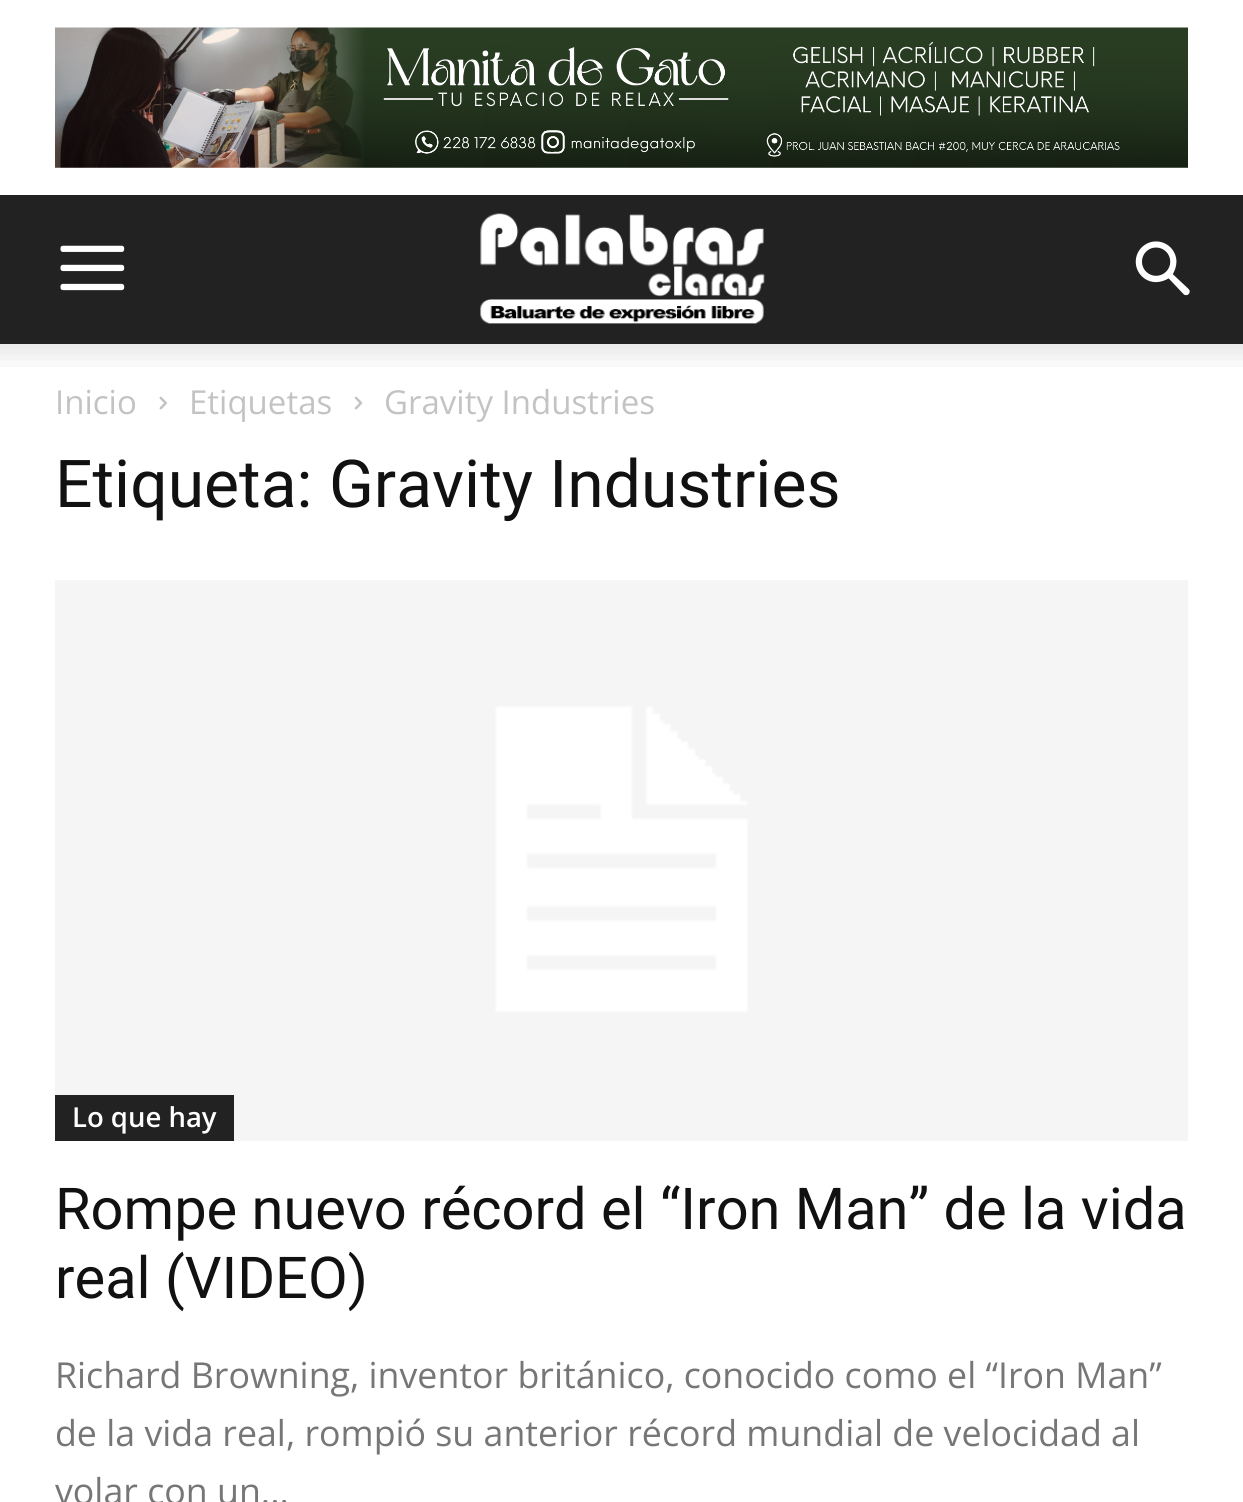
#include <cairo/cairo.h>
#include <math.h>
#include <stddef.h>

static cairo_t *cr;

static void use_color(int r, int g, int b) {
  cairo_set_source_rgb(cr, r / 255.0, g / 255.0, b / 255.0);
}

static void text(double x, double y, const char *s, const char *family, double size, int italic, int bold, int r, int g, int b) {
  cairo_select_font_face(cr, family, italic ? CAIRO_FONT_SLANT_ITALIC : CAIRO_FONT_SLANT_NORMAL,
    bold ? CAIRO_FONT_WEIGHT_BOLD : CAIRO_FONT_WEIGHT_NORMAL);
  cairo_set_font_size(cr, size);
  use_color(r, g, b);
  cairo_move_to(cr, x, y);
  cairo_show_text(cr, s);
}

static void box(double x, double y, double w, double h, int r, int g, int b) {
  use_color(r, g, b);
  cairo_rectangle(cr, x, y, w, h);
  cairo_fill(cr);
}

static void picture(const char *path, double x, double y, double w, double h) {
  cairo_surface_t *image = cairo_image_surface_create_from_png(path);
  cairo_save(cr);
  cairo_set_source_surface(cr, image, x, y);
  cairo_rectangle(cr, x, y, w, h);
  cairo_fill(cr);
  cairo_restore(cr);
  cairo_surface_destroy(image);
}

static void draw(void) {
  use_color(255, 255, 255);
  cairo_paint(cr);
  picture("img_01.png", 55, 27, 1133, 141);
  box(0, 195, 1243, 149, 34, 34, 34);
  picture("img_02.png", 60, 245, 65, 46);
  picture("img_03.png", 480, 213, 285, 111);
  picture("img_04.png", 1135, 241, 55, 55);
  picture("img_05.png", 0, 344, 1243, 23);
  picture("img_06.png", 159, 396, 8, 14);
  picture("img_07.png", 354, 396, 9, 14);
  picture("img_08.png", 55, 580, 1133, 561);
  box(55, 1095, 179, 46, 34, 34, 34);
  text(55, 414, "Inicio", "Open Sans", 33, 0, 0, 195, 195, 195);
  text(189, 414, "Etiquetas", "Open Sans", 33, 0, 0, 195, 195, 195);
  text(384, 414, "Gravity Industries", "Open Sans", 33, 0, 0, 195, 195, 195);
  text(55, 507, "Etiqueta: Gravity Industries", "Roboto", 66, 0, 0, 17, 17, 17);
  text(72, 1127, "Lo que hay", "Open Sans SemiBold", 27.5, 0, 0, 255, 255, 255);
  text(55, 1229, "Rompe nuevo récord el “Iron Man” de la vida", "Roboto", 57.75, 0, 0, 17, 17, 17);
  text(55, 1298, "real (VIDEO)", "Roboto", 57.75, 0, 0, 17, 17, 17);
  text(55, 1388, "Richard Browning, inventor británico, conocido como el “Iron Man”", "Open Sans", 35.75, 0, 0, 118, 118, 118);
  text(55, 1446, "de la vida real, rompió su anterior récord mundial de velocidad al", "Open Sans", 35.75, 0, 0, 118, 118, 118);
  text(55, 1504, "volar con un...", "Open Sans", 35.75, 0, 0, 118, 118, 118);
}

int main(void) {
  cairo_surface_t *surface = cairo_image_surface_create(CAIRO_FORMAT_RGB24, 1243, 1502);
  cr = cairo_create(surface);
  cairo_font_options_t *options = cairo_font_options_create();
  cairo_font_options_set_hint_metrics(options, CAIRO_HINT_METRICS_OFF);
  cairo_font_options_set_hint_style(options, CAIRO_HINT_STYLE_NONE);
  cairo_set_font_options(cr, options);
  cairo_set_miter_limit(cr, 4);
  draw();
  cairo_surface_write_to_png(surface, "out.png");
  cairo_font_options_destroy(options);
  cairo_destroy(cr);
  cairo_surface_destroy(surface);
  return 0;
}
